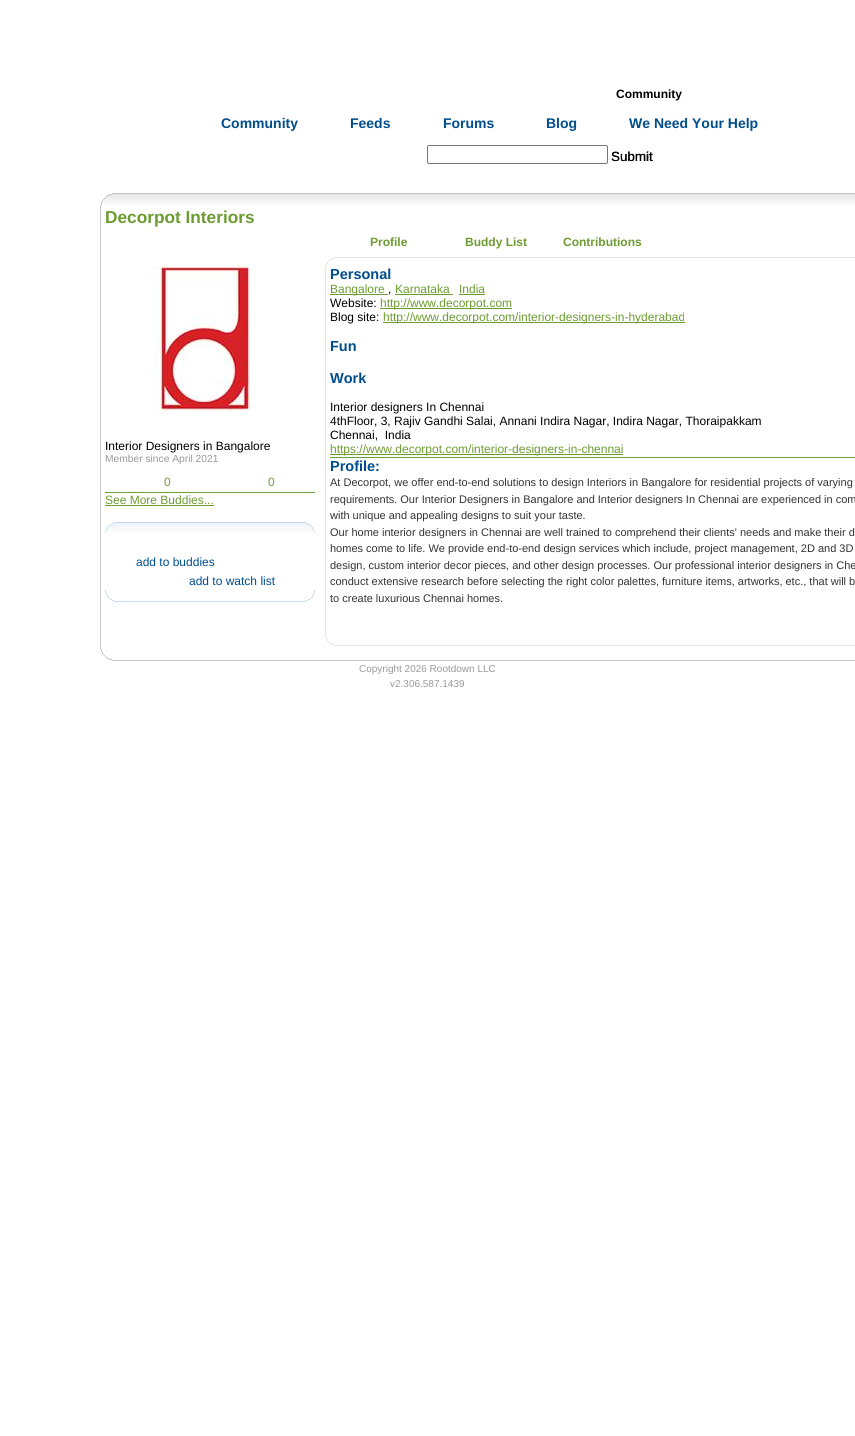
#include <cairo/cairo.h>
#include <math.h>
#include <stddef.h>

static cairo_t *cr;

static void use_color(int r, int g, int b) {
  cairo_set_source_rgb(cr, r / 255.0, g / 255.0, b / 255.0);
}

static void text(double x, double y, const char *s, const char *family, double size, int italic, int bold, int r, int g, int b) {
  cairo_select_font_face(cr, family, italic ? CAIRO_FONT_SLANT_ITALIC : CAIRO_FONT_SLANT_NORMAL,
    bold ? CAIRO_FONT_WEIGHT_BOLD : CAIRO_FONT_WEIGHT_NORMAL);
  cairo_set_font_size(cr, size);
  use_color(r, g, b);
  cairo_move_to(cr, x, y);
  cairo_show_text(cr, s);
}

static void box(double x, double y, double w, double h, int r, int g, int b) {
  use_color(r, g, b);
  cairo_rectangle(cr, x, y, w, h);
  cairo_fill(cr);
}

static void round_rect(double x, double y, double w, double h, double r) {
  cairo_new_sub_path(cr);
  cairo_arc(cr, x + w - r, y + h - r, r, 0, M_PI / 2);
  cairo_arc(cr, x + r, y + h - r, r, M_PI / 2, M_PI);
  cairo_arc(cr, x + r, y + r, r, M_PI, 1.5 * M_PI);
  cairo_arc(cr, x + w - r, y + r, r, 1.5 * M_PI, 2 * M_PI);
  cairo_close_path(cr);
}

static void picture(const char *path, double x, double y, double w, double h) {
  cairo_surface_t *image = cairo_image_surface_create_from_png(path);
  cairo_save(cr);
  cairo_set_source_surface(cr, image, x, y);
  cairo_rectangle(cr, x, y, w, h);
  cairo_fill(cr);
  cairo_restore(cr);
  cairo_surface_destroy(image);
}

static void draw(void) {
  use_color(255, 255, 255);
  cairo_paint(cr);
  round_rect(427.5, 145.5, 180, 18, 1.5);
  use_color(118, 118, 118);
  cairo_set_line_width(cr, 1);
  cairo_stroke(cr);
  picture("img_01.png", 611, 152, 42, 9);
  picture("img_02.png", 100, 193, 755, 13);
  box(100, 206, 1, 440, 197, 197, 197);
  picture("img_03.png", 153, 265, 97, 146);
  box(105, 492, 210, 1, 108, 157, 64);
  box(105, 505, 109, 1, 108, 156, 49);
  picture("img_04.png", 105, 522, 210, 10);
  picture("img_05.png", 105, 590, 210, 12);
  picture("img_06.png", 325, 257, 530, 10);
  box(325, 267, 1, 367, 228, 228, 228);
  box(330, 294, 58, 1, 108, 156, 49);
  box(395, 294, 58, 1, 108, 156, 49);
  box(459, 294, 26, 1, 108, 156, 49);
  box(380, 308, 132, 1, 108, 156, 49);
  box(383, 322, 302, 1, 108, 156, 49);
  box(330, 454, 293, 1, 108, 156, 49);
  box(330, 457, 525, 1, 108, 157, 64);
  picture("img_07.png", 325, 634, 530, 12);
  picture("img_08.png", 100, 646, 755, 15);
  text(616, 98, "Community", "Liberation Sans", 12, 0, 1, 0, 0, 0);
  text(221, 128, "Community", "Liberation Sans", 14, 0, 1, 0, 77, 141);
  text(350, 128, "Feeds", "Liberation Sans", 14, 0, 1, 0, 77, 141);
  text(443, 128, "Forums", "Liberation Sans", 14, 0, 1, 0, 77, 141);
  text(546, 128, "Blog", "Liberation Sans", 14, 0, 1, 0, 77, 141);
  text(629, 128, "We Need Your Help", "Liberation Sans", 14, 0, 1, 0, 77, 141);
  text(611, 161, "Submit", "Liberation Sans", 13.5, 0, 0, 0, 0, 0);
  text(105, 223, "Decorpot Interiors", "Liberation Sans", 17.25, 0, 1, 108, 156, 49);
  text(105, 450, "Interior Designers in Bangalore", "Liberation Sans", 12, 0, 0, 0, 0, 0);
  text(105, 462, "Member since April 2021", "Liberation Sans", 10.25, 0, 0, 153, 153, 153);
  text(164, 486, "0", "Liberation Sans", 12, 0, 0, 108, 156, 49);
  text(268, 486, "0", "Liberation Sans", 12, 0, 0, 108, 156, 49);
  text(105, 504, "See More Buddies...", "Liberation Sans", 12, 0, 0, 108, 156, 49);
  text(136, 566, "add to buddies", "Liberation Sans", 12, 0, 0, 0, 77, 141);
  text(189, 585, "add to watch list", "Liberation Sans", 12, 0, 0, 0, 77, 141);
  text(370, 246, "Profile", "Liberation Sans", 12, 0, 1, 108, 156, 49);
  text(465, 246, "Buddy List", "Liberation Sans", 12, 0, 1, 108, 156, 49);
  text(563, 246, "Contributions", "Liberation Sans", 12, 0, 1, 108, 156, 49);
  text(330, 279, "Personal", "Liberation Sans", 14.5, 0, 1, 0, 77, 141);
  text(330, 293, "Bangalore", "Liberation Sans", 12, 0, 0, 108, 156, 49);
  text(388, 293, ",", "Liberation Sans", 12, 0, 0, 0, 0, 0);
  text(395, 293, "Karnataka", "Liberation Sans", 12, 0, 0, 108, 156, 49);
  text(459, 293, "India", "Liberation Sans", 12, 0, 0, 108, 156, 49);
  text(330, 307, "Website:", "Liberation Sans", 12, 0, 0, 0, 0, 0);
  text(380, 307, "http://www.decorpot.com", "Liberation Sans", 12, 0, 0, 108, 156, 49);
  text(330, 321, "Blog site:", "Liberation Sans", 12, 0, 0, 0, 0, 0);
  text(383, 321, "http://www.decorpot.com/interior-designers-in-hyderabad", "Liberation Sans", 12, 0, 0, 108, 156, 49);
  text(330, 351, "Fun", "Liberation Sans", 14.5, 0, 1, 0, 77, 141);
  text(330, 383, "Work", "Liberation Sans", 14.5, 0, 1, 0, 77, 141);
  text(330, 411, "Interior designers In Chennai", "Liberation Sans", 12, 0, 0, 0, 0, 0);
  text(330, 425, "4thFloor, 3, Rajiv Gandhi Salai, Annani Indira Nagar, Indira Nagar, Thoraipakkam", "Liberation Sans", 12, 0, 0, 0, 0, 0);
  text(330, 439, "Chennai,  India", "Liberation Sans", 12, 0, 0, 0, 0, 0);
  text(330, 453, "https://www.decorpot.com/interior-designers-in-chennai", "Liberation Sans", 12, 0, 0, 108, 156, 49);
  text(330, 471, "Profile:", "Liberation Sans", 14.5, 0, 1, 0, 77, 141);
  text(330, 486, "At Decorpot, we offer end-to-end solutions to design Interiors in Bangalore for residential projects of varying", "Liberation Sans", 11, 0, 0, 51, 51, 51);
  text(330, 503, "requirements. Our Interior Designers in Bangalore and Interior designers In Chennai are experienced in com", "Liberation Sans", 11, 0, 0, 51, 51, 51);
  text(330, 519, "with unique and appealing designs to suit your taste.", "Liberation Sans", 11, 0, 0, 51, 51, 51);
  text(330, 536, "Our home interior designers in Chennai are well trained to comprehend their clients' needs and make their d", "Liberation Sans", 11, 0, 0, 51, 51, 51);
  text(330, 552, "homes come to life. We provide end-to-end design services which include, project management, 2D and 3D", "Liberation Sans", 11, 0, 0, 51, 51, 51);
  text(330, 569, "design, custom interior decor pieces, and other design processes. Our professional interior designers in Che", "Liberation Sans", 11, 0, 0, 51, 51, 51);
  text(330, 585, "conduct extensive research before selecting the right color palettes, furniture items, artworks, etc., that will b", "Liberation Sans", 11, 0, 0, 51, 51, 51);
  text(330, 602, "to create luxurious Chennai homes.", "Liberation Sans", 11, 0, 0, 51, 51, 51);
  text(359, 672, "Copyright 2026 Rootdown LLC", "Liberation Sans", 10, 0, 0, 153, 153, 153);
  text(390, 687, "v2.306.587.1439", "Liberation Sans", 10, 0, 0, 153, 153, 153);
}

int main(void) {
  cairo_surface_t *surface = cairo_image_surface_create(CAIRO_FORMAT_RGB24, 855, 1436);
  cr = cairo_create(surface);
  cairo_font_options_t *options = cairo_font_options_create();
  cairo_font_options_set_hint_metrics(options, CAIRO_HINT_METRICS_OFF);
  cairo_font_options_set_hint_style(options, CAIRO_HINT_STYLE_NONE);
  cairo_set_font_options(cr, options);
  cairo_set_miter_limit(cr, 4);
  draw();
  cairo_surface_write_to_png(surface, "out.png");
  cairo_font_options_destroy(options);
  cairo_destroy(cr);
  cairo_surface_destroy(surface);
  return 0;
}
